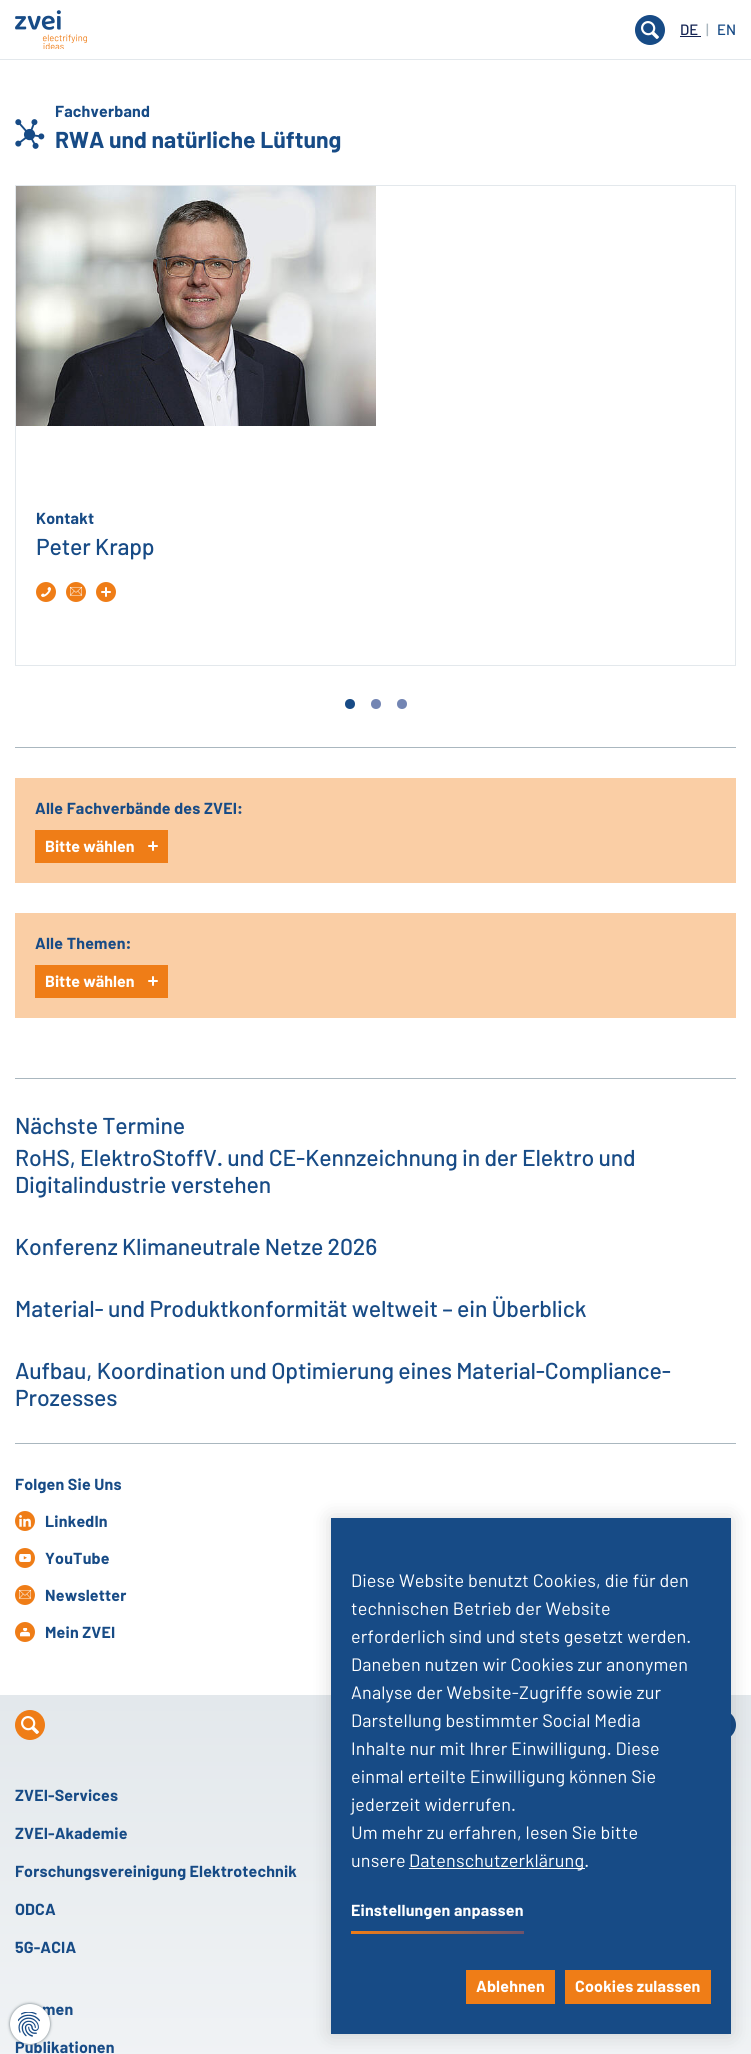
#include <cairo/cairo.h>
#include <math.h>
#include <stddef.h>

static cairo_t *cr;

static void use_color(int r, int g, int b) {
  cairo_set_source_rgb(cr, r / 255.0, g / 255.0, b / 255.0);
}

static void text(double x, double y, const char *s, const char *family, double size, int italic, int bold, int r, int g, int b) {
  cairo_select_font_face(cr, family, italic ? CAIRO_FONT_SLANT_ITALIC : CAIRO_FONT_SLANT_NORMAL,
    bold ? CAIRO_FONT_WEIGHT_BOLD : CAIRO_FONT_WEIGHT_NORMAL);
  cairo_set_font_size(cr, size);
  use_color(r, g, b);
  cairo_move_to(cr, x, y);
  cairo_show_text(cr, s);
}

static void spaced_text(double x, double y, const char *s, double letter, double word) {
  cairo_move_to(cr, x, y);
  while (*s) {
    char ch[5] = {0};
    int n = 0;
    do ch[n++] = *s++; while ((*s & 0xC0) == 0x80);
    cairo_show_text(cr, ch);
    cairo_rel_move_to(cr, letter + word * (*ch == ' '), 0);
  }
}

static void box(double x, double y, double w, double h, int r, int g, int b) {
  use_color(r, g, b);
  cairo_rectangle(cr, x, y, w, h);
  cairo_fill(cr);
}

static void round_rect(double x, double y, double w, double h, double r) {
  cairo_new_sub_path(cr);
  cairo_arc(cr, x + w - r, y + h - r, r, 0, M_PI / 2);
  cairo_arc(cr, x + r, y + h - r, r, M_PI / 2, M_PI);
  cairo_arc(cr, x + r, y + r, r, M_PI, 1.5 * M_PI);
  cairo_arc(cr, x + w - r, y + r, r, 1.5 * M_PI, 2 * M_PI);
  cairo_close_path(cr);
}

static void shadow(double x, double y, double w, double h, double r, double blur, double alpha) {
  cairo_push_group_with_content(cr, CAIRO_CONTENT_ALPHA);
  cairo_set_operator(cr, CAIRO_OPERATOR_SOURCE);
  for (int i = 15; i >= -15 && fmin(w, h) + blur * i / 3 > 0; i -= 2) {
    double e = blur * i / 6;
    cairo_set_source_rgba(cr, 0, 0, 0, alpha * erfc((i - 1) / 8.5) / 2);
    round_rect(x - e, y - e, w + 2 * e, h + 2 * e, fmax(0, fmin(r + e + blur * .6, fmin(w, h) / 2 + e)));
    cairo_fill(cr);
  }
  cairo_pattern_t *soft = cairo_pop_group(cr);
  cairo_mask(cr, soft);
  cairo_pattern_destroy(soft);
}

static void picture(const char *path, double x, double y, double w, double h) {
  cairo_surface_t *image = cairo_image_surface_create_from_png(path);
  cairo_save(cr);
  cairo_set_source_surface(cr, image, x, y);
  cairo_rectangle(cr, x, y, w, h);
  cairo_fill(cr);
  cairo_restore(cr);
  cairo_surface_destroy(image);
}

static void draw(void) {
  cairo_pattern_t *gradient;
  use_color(255, 255, 255);
  cairo_paint(cr);
  box(0, 59, 751, 1, 227, 232, 236);
  picture("img_01.png", 15, 10, 72, 39);
  use_color(23, 75, 134);
  cairo_arc(cr, 650, 30, 15, 0, 2 * M_PI);
  cairo_fill(cr);
  picture("img_02.png", 641, 21, 18, 18);
  box(680, 36, 21, 1, 20, 36, 83);
  picture("img_03.png", 15, 119, 30, 30);
  box(15, 747, 721, 1, 170, 183, 191);
  cairo_rectangle(cr, 15.5, 185.5, 720, 480);
  use_color(227, 232, 236);
  cairo_set_line_width(cr, 1);
  cairo_stroke(cr);
  picture("img_04.png", 16, 186, 360, 240);
  use_color(239, 125, 23);
  cairo_arc(cr, 46, 592, 10, 0, 2 * M_PI);
  cairo_fill(cr);
  picture("img_05.png", 41, 587, 10, 10);
  cairo_arc(cr, 76, 592, 10, 0, 2 * M_PI);
  cairo_fill(cr);
  picture("img_06.png", 70, 587, 12, 9);
  cairo_arc(cr, 106, 592, 10, 0, 2 * M_PI);
  cairo_fill(cr);
  picture("img_07.png", 101, 587, 10, 10);
  use_color(23, 75, 134);
  cairo_arc(cr, 350, 704, 5, 0, 2 * M_PI);
  cairo_fill(cr);
  use_color(115, 133, 179);
  cairo_arc(cr, 376, 704, 5, 0, 2 * M_PI);
  cairo_fill(cr);
  cairo_arc(cr, 402, 704, 5, 0, 2 * M_PI);
  cairo_fill(cr);
  box(15, 778, 721, 105, 250, 206, 165);
  box(35, 830, 133, 33, 239, 125, 23);
  picture("img_07.png", 148, 841, 10, 10);
  box(15, 913, 721, 105, 250, 206, 165);
  box(35, 965, 133, 33, 239, 125, 23);
  picture("img_07.png", 148, 976, 10, 10);
  box(15, 1078, 721, 1, 170, 183, 191);
  box(15, 1443, 721, 1, 170, 183, 191);
  use_color(239, 125, 23);
  cairo_arc(cr, 25, 1521, 10, 0, 2 * M_PI);
  cairo_fill(cr);
  picture("img_08.png", 19, 1515, 12, 12);
  cairo_arc(cr, 25, 1558, 10, 0, 2 * M_PI);
  cairo_fill(cr);
  picture("img_09.png", 19, 1554, 12, 8);
  cairo_arc(cr, 25, 1595, 10, 0, 2 * M_PI);
  cairo_fill(cr);
  picture("img_06.png", 19, 1590, 12, 9);
  cairo_arc(cr, 25, 1632, 10, 0, 2 * M_PI);
  cairo_fill(cr);
  picture("img_10.png", 20, 1628, 10, 9);
  gradient = cairo_pattern_create_linear(375, 1695, 376, 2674);
  cairo_pattern_add_color_stop_rgba(gradient, 0, 0.89, 0.91, 0.925, 1);
  cairo_pattern_add_color_stop_rgba(gradient, 0.8, 1, 1, 1, 1);
  cairo_set_source(cr, gradient);
  cairo_pattern_destroy(gradient);
  cairo_rectangle(cr, 0, 1695, 751, 359);
  cairo_fill(cr);
  use_color(239, 125, 23);
  cairo_arc(cr, 30, 1725, 15, 0, 2 * M_PI);
  cairo_fill(cr);
  picture("img_11.png", 21, 1716, 18, 18);
  use_color(23, 75, 134);
  cairo_arc(cr, 721, 1725, 15, 0, 2 * M_PI);
  cairo_fill(cr);
  use_color(0, 0, 0);
  shadow(331, 1518, 400, 516, 0, 10, 0.15);
  box(331, 1518, 400, 516, 23, 75, 134);
  box(409, 1868, 176, 1, 255, 255, 255);
  gradient = cairo_pattern_create_linear(351, 1933, 524, 1933);
  cairo_pattern_add_color_stop_rgba(gradient, 0, 0.937, 0.49, 0.09, 1);
  cairo_pattern_add_color_stop_rgba(gradient, 1, 0.435, 0.325, 0.42, 1);
  cairo_set_source(cr, gradient);
  cairo_pattern_destroy(gradient);
  cairo_rectangle(cr, 351, 1931, 173, 3);
  cairo_fill(cr);
  box(466, 1970, 89, 34, 239, 125, 23);
  box(565, 1970, 146, 34, 239, 125, 23);
  use_color(103, 116, 122);
  shadow(10, 2004, 40, 40, 20, 1.5, 1);
  text(680, 35, "DE", "Barlow Medium", 15, 0, 0, 20, 36, 83);
  text(706, 35, "|", "Barlow Medium", 15, 0, 0, 170, 183, 191);
  text(717, 35, "EN", "Barlow Medium", 15, 0, 0, 23, 75, 134);
  cairo_select_font_face(cr, "Barlow", CAIRO_FONT_SLANT_NORMAL, CAIRO_FONT_WEIGHT_BOLD);
  cairo_set_font_size(cr, 16);
  spaced_text(55, 117, "Fachverband", 0.2, 0);
  text(55, 148, "RWA und natürliche Lüftung", "Barlow", 23, 0, 1, 23, 75, 134);
  cairo_set_font_size(cr, 16);
  spaced_text(36, 524, "Kontakt", 0.2, 0);
  cairo_select_font_face(cr, "Barlow Medium", CAIRO_FONT_SLANT_NORMAL, CAIRO_FONT_WEIGHT_NORMAL);
  cairo_set_font_size(cr, 23);
  spaced_text(36, 555, "Peter Krapp", -0.15, 0);
  cairo_select_font_face(cr, "Barlow", CAIRO_FONT_SLANT_NORMAL, CAIRO_FONT_WEIGHT_BOLD);
  cairo_set_font_size(cr, 16);
  spaced_text(35, 814, "Alle Fachverbände des ZVEI:", 0.2, 0);
  text(45, 852, "Bitte wählen", "Barlow", 16, 0, 1, 255, 255, 255);
  use_color(23, 75, 134);
  spaced_text(35, 949, "Alle Themen:", 0.2, 0);
  text(45, 987, "Bitte wählen", "Barlow", 16, 0, 1, 255, 255, 255);
  cairo_select_font_face(cr, "Barlow Medium", CAIRO_FONT_SLANT_NORMAL, CAIRO_FONT_WEIGHT_NORMAL);
  cairo_set_font_size(cr, 23);
  use_color(23, 75, 134);
  spaced_text(15, 1134, "Nächste Termine", -0.15, 0);
  spaced_text(15, 1166, "RoHS, ElektroStoffV. und CE-Kennzeichnung in der Elektro und", -0.15, 0);
  spaced_text(15, 1193, "Digitalindustrie verstehen", -0.15, 0);
  spaced_text(15, 1255, "Konferenz Klimaneutrale Netze 2026", -0.15, 0);
  spaced_text(15, 1317, "Material- und Produktkonformität weltweit – ein Überblick", -0.15, 0);
  spaced_text(15, 1379, "Aufbau, Koordination und Optimierung eines Material-Compliance-", -0.15, 0);
  spaced_text(15, 1406, "Prozesses", -0.15, 0);
  cairo_select_font_face(cr, "Barlow", CAIRO_FONT_SLANT_NORMAL, CAIRO_FONT_WEIGHT_BOLD);
  cairo_set_font_size(cr, 16);
  spaced_text(15, 1490, "Folgen Sie Uns", 0.2, 0);
  spaced_text(45, 1527, "LinkedIn", 0.2, 0);
  spaced_text(45, 1564, "YouTube", 0.2, 0);
  spaced_text(45, 1601, "Newsletter", 0.2, 0);
  spaced_text(45, 1638, "Mein ZVEI", 0.2, 0);
  spaced_text(15, 1801, "ZVEI-Services", 0.15, 0);
  spaced_text(15, 1839, "ZVEI-Akademie", 0.15, 0);
  spaced_text(15, 1877, "Forschungsvereinigung Elektrotechnik", 0.15, 0);
  spaced_text(15, 1915, "ODCA", 0.15, 0);
  spaced_text(15, 1953, "5G-ACIA", 0.15, 0);
  spaced_text(42, 2015, "men", 0.15, 0);
  spaced_text(15, 2053, "Publikationen", 0.15, 0);
  cairo_select_font_face(cr, "Barlow", CAIRO_FONT_SLANT_NORMAL, CAIRO_FONT_WEIGHT_NORMAL);
  cairo_set_font_size(cr, 18);
  use_color(255, 255, 255);
  spaced_text(351, 1587, "Diese Website benutzt Cookies, die für den", 0.15, 0);
  spaced_text(351, 1615, "technischen Betrieb der Website", 0.15, 0);
  spaced_text(351, 1643, "erforderlich sind und stets gesetzt werden.", 0.15, 0);
  spaced_text(351, 1671, "Daneben nutzen wir Cookies zur anonymen", 0.15, 0);
  spaced_text(351, 1699, "Analyse der Website-Zugriffe sowie zur", 0.15, 0);
  spaced_text(351, 1727, "Darstellung bestimmter Social Media", 0.15, 0);
  spaced_text(351, 1755, "Inhalte nur mit Ihrer Einwilligung. Diese", 0.15, 0);
  spaced_text(351, 1783, "einmal erteilte Einwilligung können Sie", 0.15, 0);
  spaced_text(351, 1811, "jederzeit widerrufen.", 0.15, 0);
  spaced_text(351, 1839, "Um mehr zu erfahren, lesen Sie bitte", 0.15, 0);
  spaced_text(351, 1867, "unsere", 0.15, 0);
  spaced_text(409, 1867, "Datenschutzerklärung.", 0.15, 0);
  cairo_select_font_face(cr, "Barlow", CAIRO_FONT_SLANT_NORMAL, CAIRO_FONT_WEIGHT_BOLD);
  cairo_set_font_size(cr, 16);
  spaced_text(351, 1916, "Einstellungen anpassen", 0.2, 0);
  spaced_text(476, 1992, "Ablehnen", 0.2, 0);
  spaced_text(575, 1992, "Cookies zulassen", 0.2, 0);
  cairo_new_path(cr);
  cairo_arc(cr, 30, 2024, 20, 0, 2 * M_PI);
  cairo_fill(cr);
  picture("img_12.png", 18, 2012, 22, 25);
}

int main(void) {
  cairo_surface_t *surface = cairo_image_surface_create(CAIRO_FORMAT_RGB24, 751, 2054);
  cr = cairo_create(surface);
  cairo_font_options_t *options = cairo_font_options_create();
  cairo_font_options_set_hint_metrics(options, CAIRO_HINT_METRICS_OFF);
  cairo_font_options_set_hint_style(options, CAIRO_HINT_STYLE_NONE);
  cairo_set_font_options(cr, options);
  cairo_set_miter_limit(cr, 4);
  draw();
  cairo_surface_write_to_png(surface, "out.png");
  cairo_font_options_destroy(options);
  cairo_destroy(cr);
  cairo_surface_destroy(surface);
  return 0;
}
